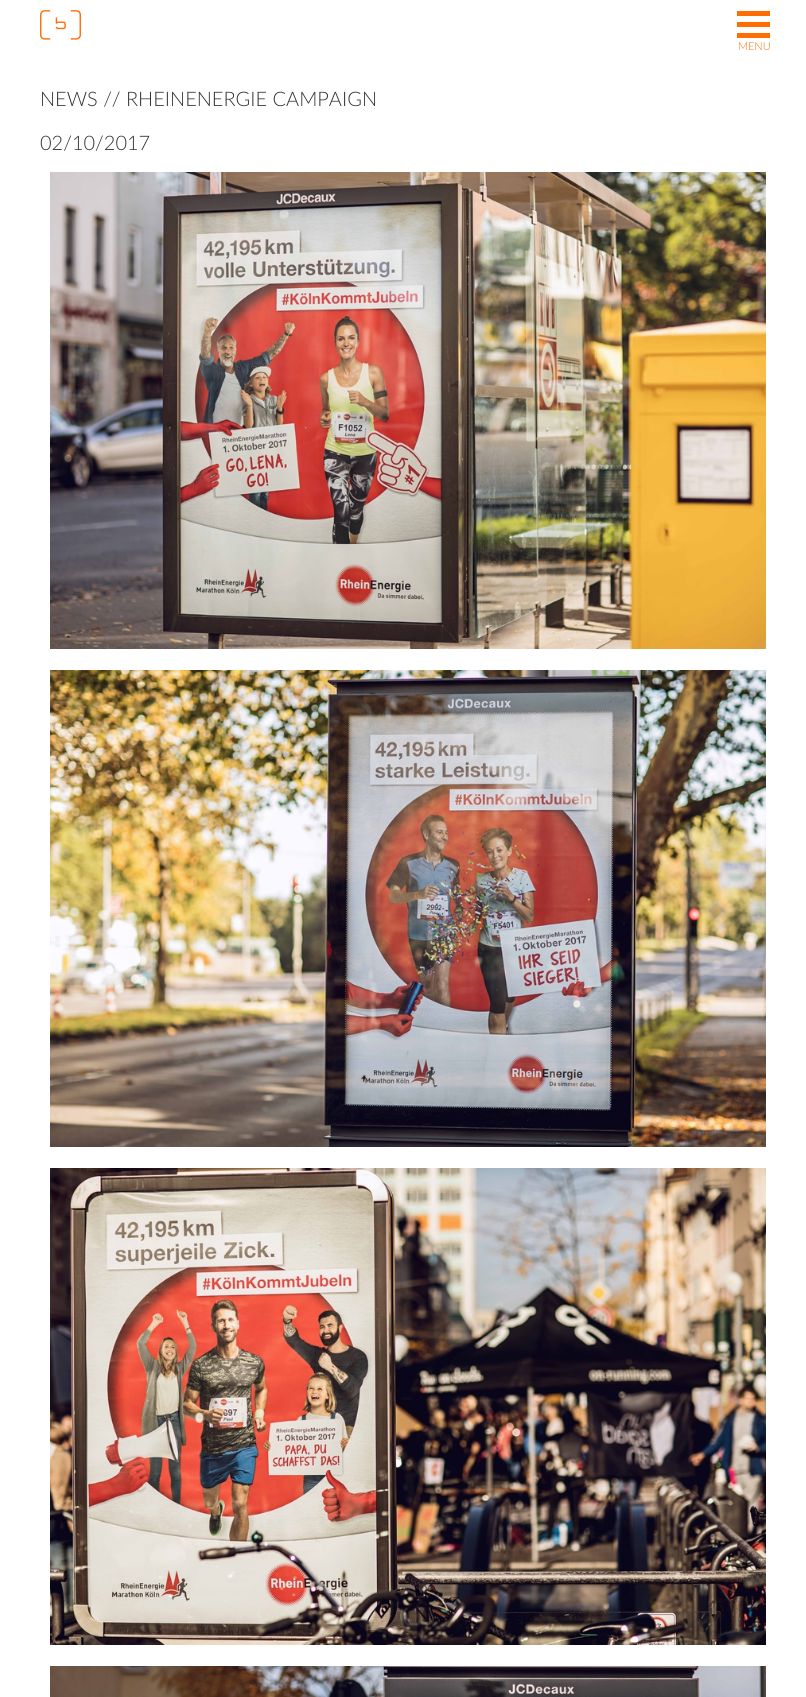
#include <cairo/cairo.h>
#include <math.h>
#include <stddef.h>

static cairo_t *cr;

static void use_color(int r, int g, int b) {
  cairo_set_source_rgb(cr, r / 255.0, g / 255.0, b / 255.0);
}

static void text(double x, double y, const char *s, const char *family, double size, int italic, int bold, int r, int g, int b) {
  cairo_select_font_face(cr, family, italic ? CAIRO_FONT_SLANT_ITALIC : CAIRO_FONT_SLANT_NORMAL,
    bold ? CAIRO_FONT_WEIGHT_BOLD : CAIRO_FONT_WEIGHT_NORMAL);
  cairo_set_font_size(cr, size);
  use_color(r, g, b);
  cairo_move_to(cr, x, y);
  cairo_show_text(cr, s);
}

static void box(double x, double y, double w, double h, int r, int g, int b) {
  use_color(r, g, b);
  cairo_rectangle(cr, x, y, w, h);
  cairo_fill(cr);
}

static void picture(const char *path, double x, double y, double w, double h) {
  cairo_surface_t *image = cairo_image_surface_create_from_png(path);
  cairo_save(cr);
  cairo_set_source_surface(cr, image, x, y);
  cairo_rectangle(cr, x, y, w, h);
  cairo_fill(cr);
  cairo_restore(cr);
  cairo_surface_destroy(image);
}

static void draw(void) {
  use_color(255, 255, 255);
  cairo_paint(cr);
  box(737, 11, 33, 5, 255, 108, 0);
  box(737, 22, 33, 5, 255, 108, 0);
  box(737, 33, 33, 5, 255, 108, 0);
  picture("img_01.png", 40, 10, 41, 30);
  picture("img_02.png", 50, 172, 716, 477);
  picture("img_03.png", 50, 670, 716, 477);
  picture("img_04.png", 50, 1168, 716, 477);
  picture("img_05.png", 50, 1666, 716, 31);
  text(738, 50, "MENU", "Lato Light", 11, 0, 0, 255, 108, 0);
  text(40, 106, "NEWS // RHEINENERGIE CAMPAIGN", "Lato Light", 20, 0, 0, 51, 51, 51);
  text(40, 150, "02/10/2017", "Lato Light", 20, 0, 0, 51, 51, 51);
}

int main(void) {
  cairo_surface_t *surface = cairo_image_surface_create(CAIRO_FORMAT_RGB24, 806, 1697);
  cr = cairo_create(surface);
  cairo_font_options_t *options = cairo_font_options_create();
  cairo_font_options_set_hint_metrics(options, CAIRO_HINT_METRICS_OFF);
  cairo_font_options_set_hint_style(options, CAIRO_HINT_STYLE_NONE);
  cairo_set_font_options(cr, options);
  cairo_set_miter_limit(cr, 4);
  draw();
  cairo_surface_write_to_png(surface, "out.png");
  cairo_font_options_destroy(options);
  cairo_destroy(cr);
  cairo_surface_destroy(surface);
  return 0;
}
